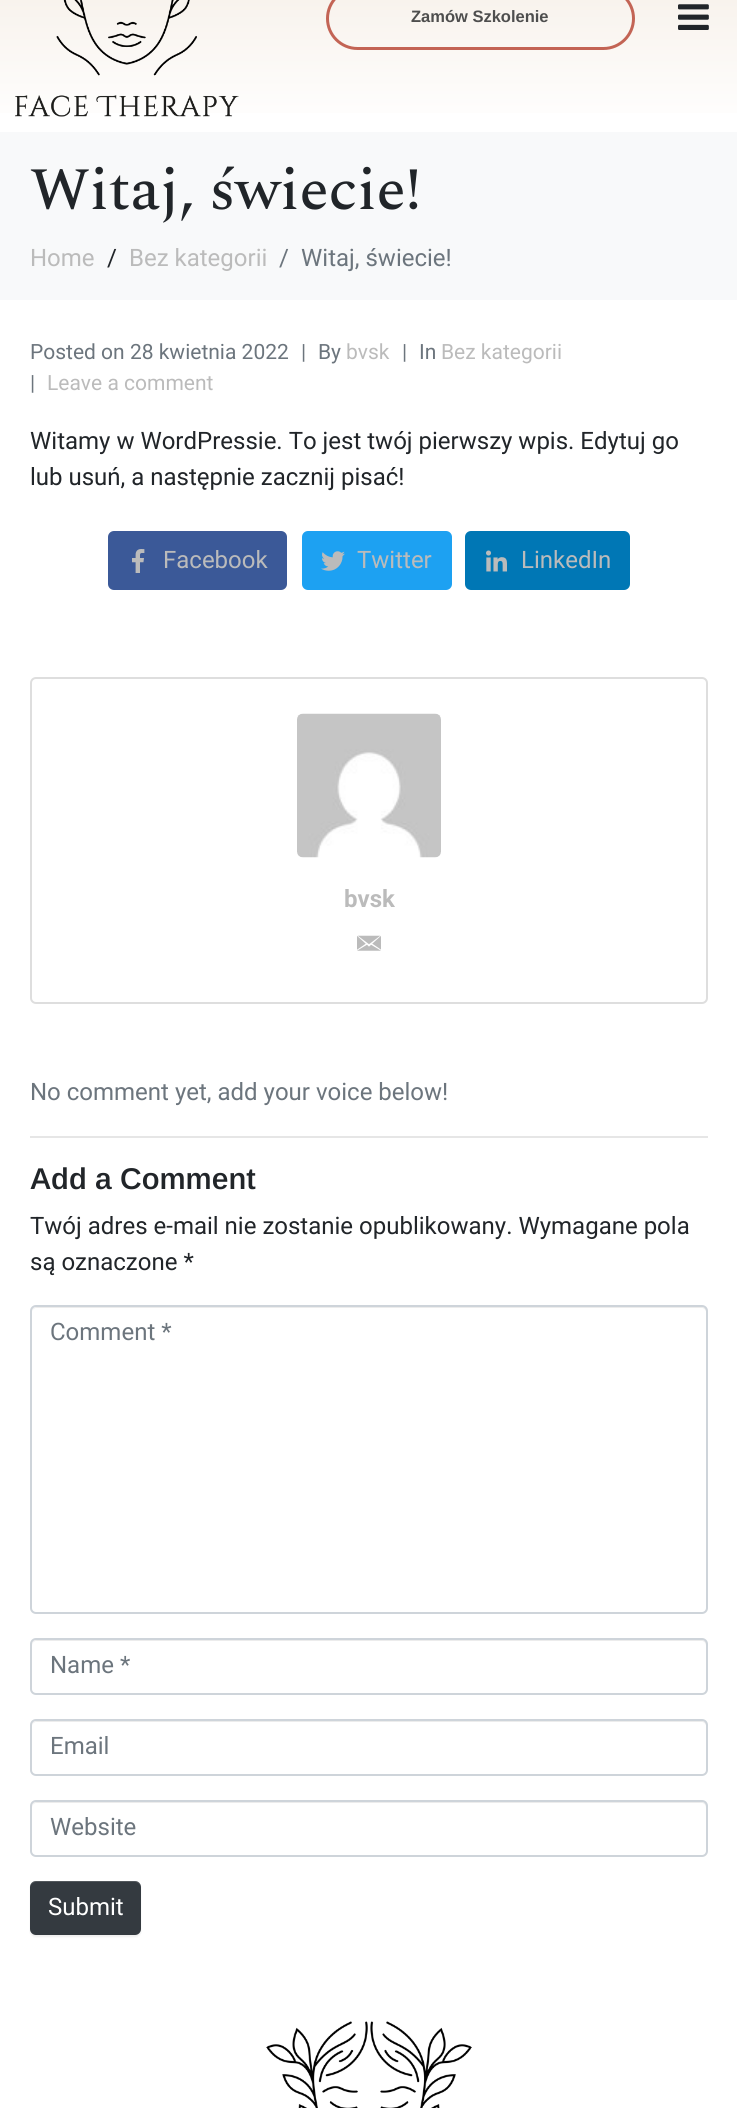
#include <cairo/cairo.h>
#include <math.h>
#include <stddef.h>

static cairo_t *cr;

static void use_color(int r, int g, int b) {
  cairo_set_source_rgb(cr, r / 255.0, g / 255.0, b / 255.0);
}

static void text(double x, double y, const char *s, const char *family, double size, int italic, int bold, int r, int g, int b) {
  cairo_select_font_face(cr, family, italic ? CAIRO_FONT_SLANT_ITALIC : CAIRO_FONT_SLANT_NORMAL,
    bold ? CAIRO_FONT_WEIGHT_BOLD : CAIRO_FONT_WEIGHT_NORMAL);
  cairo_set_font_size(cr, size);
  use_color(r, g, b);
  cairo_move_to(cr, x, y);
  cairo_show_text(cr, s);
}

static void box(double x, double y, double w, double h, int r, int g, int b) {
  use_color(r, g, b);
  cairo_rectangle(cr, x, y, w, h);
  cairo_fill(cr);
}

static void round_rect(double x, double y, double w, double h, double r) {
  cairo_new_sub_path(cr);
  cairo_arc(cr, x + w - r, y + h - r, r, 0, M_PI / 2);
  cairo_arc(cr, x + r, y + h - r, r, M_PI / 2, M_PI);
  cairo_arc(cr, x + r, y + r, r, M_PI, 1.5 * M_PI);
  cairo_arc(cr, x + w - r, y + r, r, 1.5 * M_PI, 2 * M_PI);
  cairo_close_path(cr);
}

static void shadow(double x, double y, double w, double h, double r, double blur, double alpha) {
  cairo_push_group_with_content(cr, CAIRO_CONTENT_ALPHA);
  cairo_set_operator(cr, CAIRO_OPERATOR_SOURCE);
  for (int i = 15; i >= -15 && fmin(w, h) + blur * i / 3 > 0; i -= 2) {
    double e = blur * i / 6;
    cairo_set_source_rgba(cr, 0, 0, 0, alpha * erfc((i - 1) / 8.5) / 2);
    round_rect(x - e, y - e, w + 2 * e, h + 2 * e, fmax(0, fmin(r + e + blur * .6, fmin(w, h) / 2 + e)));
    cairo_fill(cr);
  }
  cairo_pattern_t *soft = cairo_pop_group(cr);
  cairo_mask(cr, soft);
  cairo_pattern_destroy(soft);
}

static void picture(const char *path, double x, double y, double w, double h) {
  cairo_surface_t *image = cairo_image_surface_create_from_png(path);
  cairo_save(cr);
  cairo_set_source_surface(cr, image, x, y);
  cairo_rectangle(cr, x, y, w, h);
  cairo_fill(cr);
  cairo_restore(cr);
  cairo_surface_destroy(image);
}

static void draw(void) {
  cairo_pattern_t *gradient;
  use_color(255, 255, 255);
  cairo_paint(cr);
  gradient = cairo_pattern_create_linear(369, -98, 369, 132);
  cairo_pattern_add_color_stop_rgba(gradient, 0, 0.953, 0.918, 0.878, 1);
  cairo_pattern_add_color_stop_rgba(gradient, 1, 1, 1, 1, 1);
  cairo_set_source(cr, gradient);
  cairo_pattern_destroy(gradient);
  cairo_rectangle(cr, 0, 0, 737, 113);
  cairo_fill(cr);
  picture("img_01.png", 15, 0, 224, 117);
  round_rect(327.5, -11.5, 306, 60, 30);
  use_color(195, 100, 85);
  cairo_set_line_width(cr, 3);
  cairo_stroke(cr);
  picture("img_02.png", 678, 4, 31, 26);
  box(0, 132, 737, 168, 248, 249, 250);
  use_color(59, 89, 152);
  round_rect(108, 531, 179, 59, 6);
  cairo_fill(cr);
  picture("img_03.png", 132, 549, 13, 24);
  use_color(29, 161, 242);
  round_rect(302, 531, 150, 59, 6);
  cairo_fill(cr);
  picture("img_04.png", 321, 551, 24, 20);
  use_color(0, 119, 181);
  round_rect(465, 531, 165, 59, 6);
  cairo_fill(cr);
  picture("img_05.png", 486, 550, 21, 22);
  round_rect(31, 678, 676, 325, 5);
  use_color(222, 222, 222);
  cairo_set_line_width(cr, 2);
  cairo_stroke(cr);
  picture("img_06.png", 297, 713, 144, 145);
  picture("img_07.png", 357, 935, 24, 16);
  box(30, 1136, 678, 2, 230, 230, 230);
  use_color(236, 236, 236);
  cairo_new_path(cr);
  cairo_move_to(cr, 36, 1308);
  cairo_line_to(cr, 702, 1308);
  cairo_curve_to(cr, 704, 1308, 706, 1310, 706, 1312);
  cairo_line_to(cr, 706, 1611);
  cairo_curve_to(cr, 707, 1610, 707, 1609, 707, 1608);
  cairo_line_to(cr, 707, 1312);
  cairo_curve_to(cr, 707, 1309, 705, 1307, 702, 1307);
  cairo_line_to(cr, 37, 1307);
  cairo_curve_to(cr, 34, 1307, 32, 1309, 32, 1312);
  cairo_curve_to(cr, 32, 1310, 34, 1308, 36, 1308);
  cairo_close_path(cr);
  cairo_fill(cr);
  round_rect(31, 1306, 676, 307, 5);
  use_color(206, 212, 218);
  cairo_stroke(cr);
  use_color(236, 236, 236);
  cairo_new_path(cr);
  cairo_move_to(cr, 36, 1641);
  cairo_line_to(cr, 702, 1641);
  cairo_curve_to(cr, 704, 1641, 706, 1643, 706, 1646);
  cairo_line_to(cr, 706, 1690);
  cairo_line_to(cr, 705, 1693);
  cairo_curve_to(cr, 706, 1692, 707, 1690, 707, 1689);
  cairo_line_to(cr, 707, 1645);
  cairo_curve_to(cr, 707, 1642, 705, 1640, 702, 1640);
  cairo_line_to(cr, 37, 1640);
  cairo_curve_to(cr, 34, 1640, 32, 1642, 32, 1645);
  cairo_line_to(cr, 32, 1646);
  cairo_curve_to(cr, 32, 1643, 34, 1641, 36, 1641);
  cairo_close_path(cr);
  cairo_fill(cr);
  round_rect(31, 1639, 676, 55, 5);
  use_color(206, 212, 218);
  cairo_stroke(cr);
  use_color(236, 236, 236);
  cairo_new_path(cr);
  cairo_move_to(cr, 36, 1722);
  cairo_line_to(cr, 702, 1722);
  cairo_curve_to(cr, 704, 1722, 706, 1724, 706, 1726);
  cairo_line_to(cr, 706, 1773);
  cairo_curve_to(cr, 707, 1772, 707, 1771, 707, 1770);
  cairo_line_to(cr, 707, 1726);
  cairo_curve_to(cr, 707, 1723, 705, 1721, 702, 1721);
  cairo_line_to(cr, 37, 1721);
  cairo_curve_to(cr, 34, 1721, 32, 1723, 32, 1726);
  cairo_curve_to(cr, 32, 1724, 34, 1722, 36, 1722);
  cairo_close_path(cr);
  cairo_fill(cr);
  round_rect(31, 1720, 676, 55, 5);
  use_color(206, 212, 218);
  cairo_stroke(cr);
  use_color(236, 236, 236);
  cairo_new_path(cr);
  cairo_move_to(cr, 36, 1803);
  cairo_line_to(cr, 702, 1803);
  cairo_curve_to(cr, 704, 1803, 706, 1805, 706, 1808);
  cairo_line_to(cr, 706, 1852);
  cairo_line_to(cr, 705, 1855);
  cairo_curve_to(cr, 706, 1854, 707, 1852, 707, 1851);
  cairo_line_to(cr, 707, 1807);
  cairo_curve_to(cr, 707, 1804, 705, 1802, 702, 1802);
  cairo_line_to(cr, 37, 1802);
  cairo_curve_to(cr, 34, 1802, 32, 1804, 32, 1807);
  cairo_line_to(cr, 32, 1808);
  cairo_curve_to(cr, 32, 1805, 34, 1803, 36, 1803);
  cairo_close_path(cr);
  cairo_fill(cr);
  round_rect(31, 1801, 676, 55, 5);
  use_color(206, 212, 218);
  cairo_stroke(cr);
  use_color(0, 0, 0);
  shadow(30, 1883, 111, 54, 6, 1, 0.07);
  use_color(52, 58, 64);
  round_rect(30, 1881, 111, 54, 6);
  cairo_fill(cr);
  cairo_set_source_rgba(cr, 1, 1, 1, 0.15);
  cairo_new_path(cr);
  cairo_move_to(cr, 36, 1882);
  cairo_line_to(cr, 135, 1882);
  cairo_curve_to(cr, 138, 1882, 141, 1885, 141, 1888);
  cairo_curve_to(cr, 141, 1877, 125, 1881, 118, 1881);
  cairo_line_to(cr, 52, 1881);
  cairo_curve_to(cr, 46, 1881, 30, 1877, 30, 1888);
  cairo_curve_to(cr, 30, 1885, 33, 1882, 36, 1882);
  cairo_close_path(cr);
  cairo_fill(cr);
  picture("img_08.png", 266, 2021, 206, 87);
  text(411, 22, "Zamów Szkolenie", "Arimo", 16.5, 0, 1, 78, 78, 78);
  text(30, 209, "Witaj, świecie!", "Spectral Medium", 60, 0, 0, 33, 37, 41);
  text(30, 266, "Home", "Roboto", 24, 0, 0, 187, 187, 187);
  text(107, 266, "/", "Roboto", 24, 0, 0, 33, 37, 41);
  text(129, 266, "Bez kategorii", "Roboto", 24, 0, 0, 187, 187, 187);
  text(279, 266, "/", "Roboto", 24, 0, 0, 108, 117, 125);
  text(301, 266, "Witaj, świecie!", "Roboto", 24, 0, 0, 108, 117, 125);
  text(30, 359, "Posted on 28 kwietnia 2022", "Roboto", 21, 0, 0, 108, 117, 125);
  text(301, 359, "|", "Roboto", 21, 0, 0, 108, 117, 125);
  text(318, 359, "By", "Roboto", 21, 0, 0, 108, 117, 125);
  text(346, 359, "bvsk", "Roboto", 21, 0, 0, 187, 187, 187);
  text(402, 359, "|", "Roboto", 21, 0, 0, 108, 117, 125);
  text(419, 359, "In", "Roboto", 21, 0, 0, 108, 117, 125);
  text(441, 359, "Bez kategorii", "Roboto", 21, 0, 0, 187, 187, 187);
  text(30, 390, "|", "Roboto", 21, 0, 0, 108, 117, 125);
  text(47, 390, "Leave a comment", "Roboto", 21, 0, 0, 187, 187, 187);
  text(30, 449, "Witamy w WordPressie. To jest twój pierwszy wpis. Edytuj go", "Roboto", 24, 0, 0, 33, 37, 41);
  text(30, 485, "lub usuń, a następnie zacznij pisać!", "Roboto", 24, 0, 0, 33, 37, 41);
  text(163, 568, "Facebook", "Roboto", 24, 0, 0, 187, 187, 187);
  text(357, 568, "Twitter", "Roboto", 24, 0, 0, 187, 187, 187);
  text(521, 568, "LinkedIn", "Roboto", 24, 0, 0, 187, 187, 187);
  text(344, 907, "bvsk", "Roboto", 24, 0, 1, 187, 187, 187);
  text(30, 1100, "No comment yet, add your voice below!", "Roboto", 24, 0, 0, 108, 117, 125);
  text(30, 1189, "Add a Comment", "Arimo SemiBold", 30, 0, 0, 33, 37, 41);
  text(30, 1234, "Twój adres e-mail nie zostanie opublikowany. Wymagane pola", "Roboto", 24, 0, 0, 33, 37, 41);
  text(30, 1270, "są oznaczone *", "Roboto", 24, 0, 0, 33, 37, 41);
  text(50, 1340, "Comment *", "Roboto", 24, 0, 0, 108, 117, 125);
  text(50, 1673, "Name *", "Roboto", 24, 0, 0, 108, 117, 125);
  text(50, 1754, "Email", "Roboto", 24, 0, 0, 108, 117, 125);
  text(50, 1835, "Website", "Roboto", 24, 0, 0, 108, 117, 125);
  text(48, 1915, "Submit", "Roboto", 24, 0, 0, 255, 255, 255);
}

int main(void) {
  cairo_surface_t *surface = cairo_image_surface_create(CAIRO_FORMAT_RGB24, 737, 2108);
  cr = cairo_create(surface);
  cairo_font_options_t *options = cairo_font_options_create();
  cairo_font_options_set_hint_metrics(options, CAIRO_HINT_METRICS_OFF);
  cairo_font_options_set_hint_style(options, CAIRO_HINT_STYLE_NONE);
  cairo_set_font_options(cr, options);
  cairo_set_miter_limit(cr, 4);
  draw();
  cairo_surface_write_to_png(surface, "out.png");
  cairo_font_options_destroy(options);
  cairo_destroy(cr);
  cairo_surface_destroy(surface);
  return 0;
}
